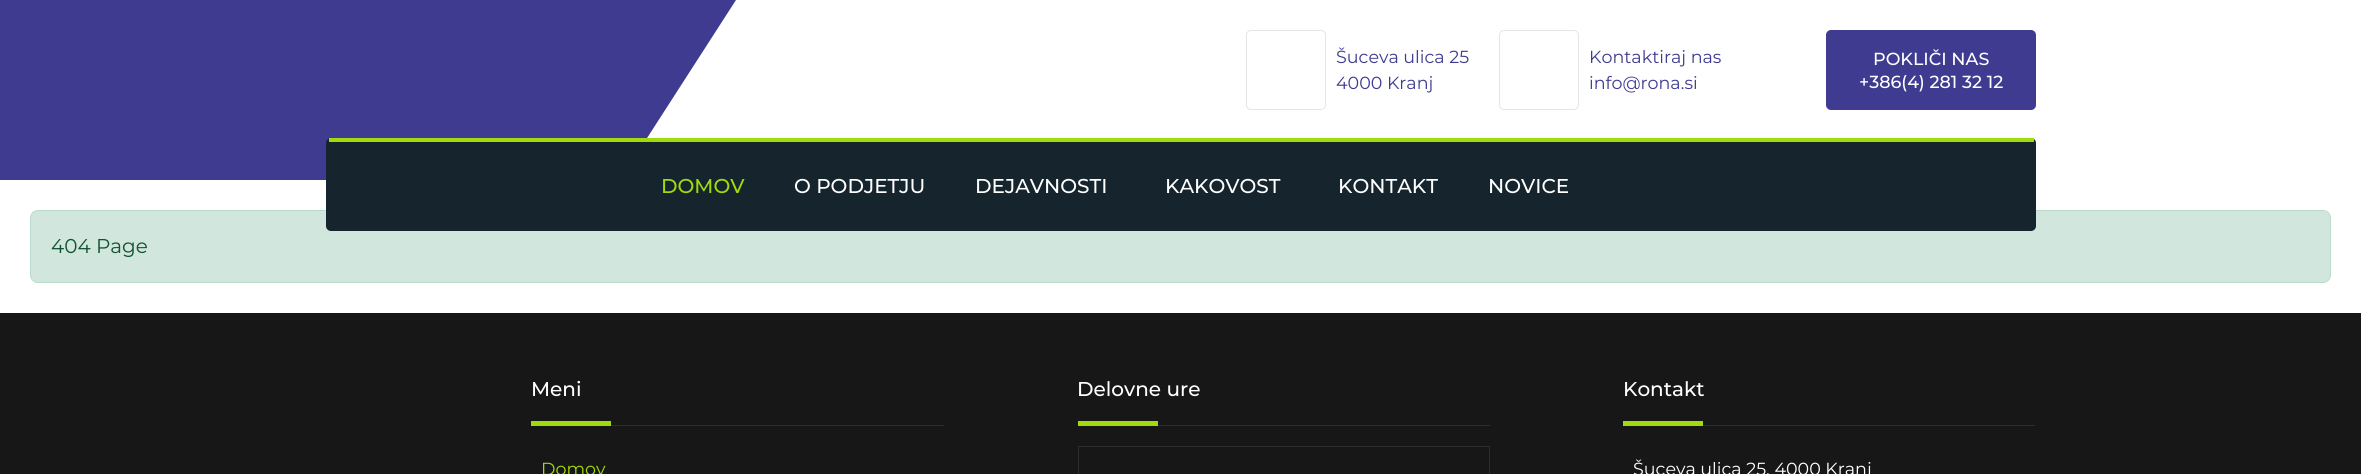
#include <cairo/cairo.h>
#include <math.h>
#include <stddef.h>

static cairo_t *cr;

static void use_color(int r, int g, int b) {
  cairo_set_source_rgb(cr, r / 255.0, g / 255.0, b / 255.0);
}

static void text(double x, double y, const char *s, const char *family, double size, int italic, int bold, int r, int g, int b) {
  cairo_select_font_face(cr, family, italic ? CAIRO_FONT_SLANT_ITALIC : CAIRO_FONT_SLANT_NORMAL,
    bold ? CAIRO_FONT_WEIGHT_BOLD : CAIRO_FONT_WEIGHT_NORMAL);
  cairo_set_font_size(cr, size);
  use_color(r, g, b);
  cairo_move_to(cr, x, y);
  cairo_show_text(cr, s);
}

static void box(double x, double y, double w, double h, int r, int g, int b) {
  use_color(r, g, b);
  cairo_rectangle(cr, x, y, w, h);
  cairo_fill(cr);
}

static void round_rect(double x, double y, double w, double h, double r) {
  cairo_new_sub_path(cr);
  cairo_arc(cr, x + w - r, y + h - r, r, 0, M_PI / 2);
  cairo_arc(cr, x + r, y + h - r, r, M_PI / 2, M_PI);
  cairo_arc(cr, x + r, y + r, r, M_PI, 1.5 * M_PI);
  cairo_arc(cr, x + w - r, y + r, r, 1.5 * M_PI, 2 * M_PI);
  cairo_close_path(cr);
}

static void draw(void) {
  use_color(255, 255, 255);
  cairo_paint(cr);
  box(0, 0, 306, 180, 62, 59, 144);
  cairo_new_path(cr);
  cairo_move_to(cr, 306, 0);
  cairo_line_to(cr, 306, 180);
  cairo_line_to(cr, 620, 180);
  cairo_line_to(cr, 736, 0);
  cairo_close_path(cr);
  cairo_fill(cr);
  round_rect(1246.5, 30.5, 79, 79, 4.5);
  use_color(229, 229, 229);
  cairo_set_line_width(cr, 1);
  cairo_stroke(cr);
  round_rect(1499.5, 30.5, 79, 79, 4.5);
  cairo_stroke(cr);
  use_color(62, 59, 144);
  round_rect(1826, 30, 210, 80, 5);
  cairo_fill(cr);
  use_color(209, 231, 221);
  round_rect(30.5, 210.5, 2300, 72, 7.5);
  cairo_fill_preserve(cr);
  use_color(186, 219, 204);
  cairo_stroke(cr);
  use_color(22, 36, 46);
  round_rect(326, 138, 1710, 93, 5);
  cairo_fill(cr);
  box(329, 138, 1705, 4, 160, 219, 13);
  box(0, 313, 2361, 161, 23, 23, 23);
  box(611, 425, 333, 1, 46, 46, 46);
  box(531, 421, 80, 5, 160, 219, 13);
  box(1158, 425, 332, 1, 46, 46, 46);
  box(1078, 421, 80, 5, 160, 219, 13);
  cairo_rectangle(cr, 1078.5, 446.5, 411, 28);
  use_color(46, 46, 46);
  cairo_stroke(cr);
  box(1703, 425, 332, 1, 46, 46, 46);
  box(1623, 421, 80, 5, 160, 219, 13);
  text(1336, 63, "Šuceva ulica 25", "Montserrat", 17.5, 0, 0, 62, 59, 144);
  text(1336, 89, "4000 Kranj", "Montserrat", 17.5, 0, 0, 62, 59, 144);
  text(1589, 63, "Kontaktiraj nas", "Montserrat", 17.5, 0, 0, 62, 59, 144);
  text(1589, 89, "info@rona.si", "Montserrat", 17.5, 0, 0, 62, 59, 144);
  text(1873, 65, "POKLIČI NAS", "Montserrat Medium", 17.5, 0, 0, 255, 255, 255);
  text(1859, 88, "+386(4) 281 32 12", "Montserrat Medium", 17.5, 0, 0, 255, 255, 255);
  text(661, 193, "DOMOV", "Montserrat Medium", 20, 0, 0, 160, 219, 13);
  text(794, 193, "O PODJETJU", "Montserrat Medium", 20, 0, 0, 255, 255, 255);
  text(975, 193, "DEJAVNOSTI", "Montserrat Medium", 20, 0, 0, 255, 255, 255);
  text(1165, 193, "KAKOVOST", "Montserrat Medium", 20, 0, 0, 255, 255, 255);
  text(1338, 193, "KONTAKT", "Montserrat Medium", 20, 0, 0, 255, 255, 255);
  text(1488, 193, "NOVICE", "Montserrat Medium", 20, 0, 0, 255, 255, 255);
  text(51, 253, "404 Page", "Montserrat", 20, 0, 0, 15, 81, 50);
  text(531, 396, "Meni", "Montserrat Medium", 20, 0, 0, 255, 255, 255);
  text(541, 475, "Domov", "Montserrat", 17.5, 0, 0, 160, 219, 13);
  text(1077, 396, "Delovne ure", "Montserrat Medium", 20, 0, 0, 255, 255, 255);
  text(1623, 396, "Kontakt", "Montserrat Medium", 20, 0, 0, 255, 255, 255);
  text(1633, 475, "Šuceva ulica 25, 4000 Kranj", "Montserrat", 17.5, 0, 0, 255, 255, 255);
}

int main(void) {
  cairo_surface_t *surface = cairo_image_surface_create(CAIRO_FORMAT_RGB24, 2361, 474);
  cr = cairo_create(surface);
  cairo_font_options_t *options = cairo_font_options_create();
  cairo_font_options_set_hint_metrics(options, CAIRO_HINT_METRICS_OFF);
  cairo_font_options_set_hint_style(options, CAIRO_HINT_STYLE_NONE);
  cairo_set_font_options(cr, options);
  cairo_set_miter_limit(cr, 4);
  draw();
  cairo_surface_write_to_png(surface, "out.png");
  cairo_font_options_destroy(options);
  cairo_destroy(cr);
  cairo_surface_destroy(surface);
  return 0;
}
